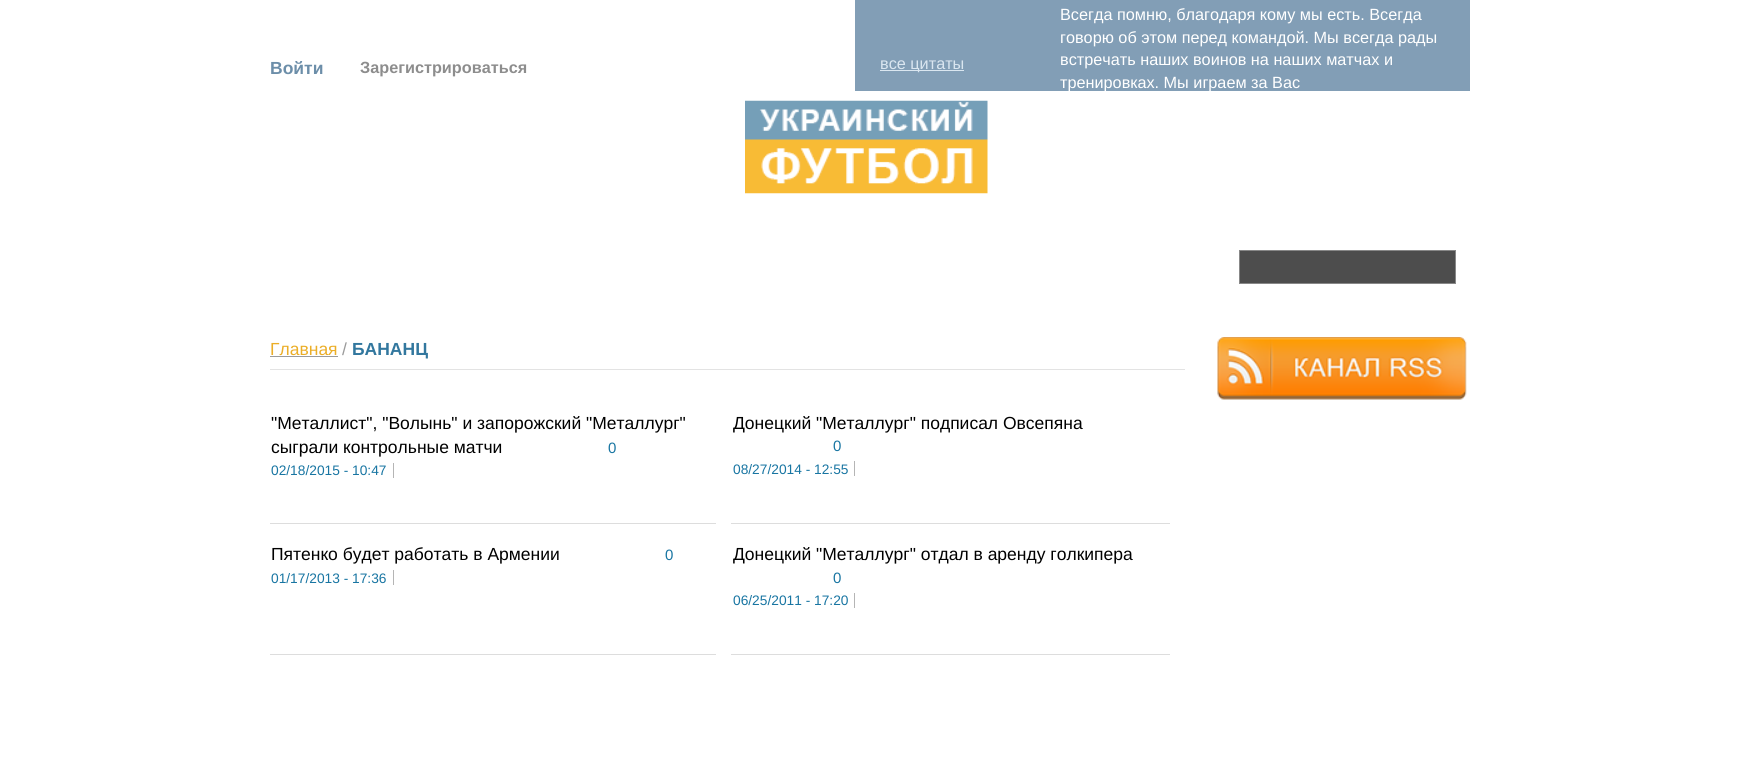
#include <cairo/cairo.h>
#include <math.h>
#include <stddef.h>

static cairo_t *cr;

static void use_color(int r, int g, int b) {
  cairo_set_source_rgb(cr, r / 255.0, g / 255.0, b / 255.0);
}

static void text(double x, double y, const char *s, const char *family, double size, int italic, int bold, int r, int g, int b) {
  cairo_select_font_face(cr, family, italic ? CAIRO_FONT_SLANT_ITALIC : CAIRO_FONT_SLANT_NORMAL,
    bold ? CAIRO_FONT_WEIGHT_BOLD : CAIRO_FONT_WEIGHT_NORMAL);
  cairo_set_font_size(cr, size);
  use_color(r, g, b);
  cairo_move_to(cr, x, y);
  cairo_show_text(cr, s);
}

static void box(double x, double y, double w, double h, int r, int g, int b) {
  use_color(r, g, b);
  cairo_rectangle(cr, x, y, w, h);
  cairo_fill(cr);
}

static void picture(const char *path, double x, double y, double w, double h) {
  cairo_surface_t *image = cairo_image_surface_create_from_png(path);
  cairo_save(cr);
  cairo_set_source_surface(cr, image, x, y);
  cairo_rectangle(cr, x, y, w, h);
  cairo_fill(cr);
  cairo_restore(cr);
  cairo_surface_destroy(image);
}

static void draw(void) {
  use_color(255, 255, 255);
  cairo_paint(cr);
  box(855, 0, 615, 91, 130, 158, 182);
  box(880, 70, 84, 1, 218, 230, 240);
  picture("img_01.png", 745, 100, 243, 94);
  use_color(77, 77, 77);
  cairo_rectangle(cr, 1239.5, 250.5, 216, 33);
  cairo_fill_preserve(cr);
  use_color(136, 136, 136);
  cairo_set_line_width(cr, 1);
  cairo_stroke(cr);
  box(270, 369, 915, 1, 227, 227, 227);
  box(270, 356, 68, 1, 155, 155, 155);
  box(270, 523, 446, 1, 221, 221, 221);
  box(393, 463, 1, 15, 181, 181, 181);
  box(724, 523, 446, 1, 221, 221, 221);
  box(854, 461, 1, 15, 181, 181, 181);
  box(270, 654, 446, 1, 221, 221, 221);
  box(724, 654, 446, 1, 221, 221, 221);
  box(724, 523, 7, 132, 255, 255, 255);
  box(393, 570, 1, 15, 181, 181, 181);
  box(854, 593, 1, 15, 181, 181, 181);
  picture("img_02.png", 1217, 337, 250, 63);
  text(270, 74, "Войти", "Liberation Sans", 17.5, 0, 1, 108, 142, 169);
  text(360, 73, "Зарегистрироваться", "Liberation Sans", 16.25, 0, 1, 141, 141, 141);
  text(880, 69, "все цитаты", "Liberation Sans", 16.25, 0, 0, 218, 230, 240);
  text(1060, 20, "Всегда помню, благодаря кому мы есть. Всегда", "Liberation Sans", 16.25, 0, 0, 255, 255, 255);
  text(1060, 43, "говорю об этом перед командой. Мы всегда рады", "Liberation Sans", 16.25, 0, 0, 255, 255, 255);
  text(1060, 65, "встречать наших воинов на наших матчах и", "Liberation Sans", 16.25, 0, 0, 255, 255, 255);
  text(1060, 88, "тренировках. Мы играем за Вас", "Liberation Sans", 16.25, 0, 0, 255, 255, 255);
  text(270, 355, "Главная", "Liberation Sans", 17.5, 0, 0, 235, 174, 40);
  text(342, 355, "/", "Liberation Sans", 17.5, 0, 0, 155, 155, 155);
  text(352, 355, "БАНАНЦ", "Liberation Sans", 17.5, 0, 1, 50, 119, 158);
  text(271, 429, "\"Металлист\", \"Волынь\" и запорожский \"Металлург\"", "Liberation Sans", 17.5, 0, 0, 0, 0, 0);
  text(271, 453, "сыграли контрольные матчи", "Liberation Sans", 17.5, 0, 0, 0, 0, 0);
  text(608, 453, "0", "Liberation Sans", 15, 0, 0, 24, 117, 162);
  text(271, 475, "02/18/2015 - 10:47", "Liberation Sans", 13.75, 0, 0, 24, 117, 162);
  cairo_save(cr);
  cairo_rectangle(cr, 733, 411, 440, 47);
  cairo_clip(cr);
  text(733, 429, "Донецкий \"Металлург\" подписал Овсепяна", "Liberation Sans", 17.5, 0, 0, 0, 0, 0);
  cairo_restore(cr);
  text(833, 451, "0", "Liberation Sans", 15, 0, 0, 24, 117, 162);
  text(733, 474, "08/27/2014 - 12:55", "Liberation Sans", 13.75, 0, 0, 24, 117, 162);
  text(271, 560, "Пятенко будет работать в Армении", "Liberation Sans", 17.5, 0, 0, 0, 0, 0);
  text(665, 560, "0", "Liberation Sans", 15, 0, 0, 24, 117, 162);
  text(271, 583, "01/17/2013 - 17:36", "Liberation Sans", 13.75, 0, 0, 24, 117, 162);
  cairo_save(cr);
  cairo_rectangle(cr, 733, 543, 440, 46);
  cairo_clip(cr);
  text(733, 560, "Донецкий \"Металлург\" отдал в аренду голкипера", "Liberation Sans", 17.5, 0, 0, 0, 0, 0);
  cairo_restore(cr);
  text(833, 583, "0", "Liberation Sans", 15, 0, 0, 24, 117, 162);
  text(733, 605, "06/25/2011 - 17:20", "Liberation Sans", 13.75, 0, 0, 24, 117, 162);
}

int main(void) {
  cairo_surface_t *surface = cairo_image_surface_create(CAIRO_FORMAT_RGB24, 1739, 770);
  cr = cairo_create(surface);
  cairo_font_options_t *options = cairo_font_options_create();
  cairo_font_options_set_hint_metrics(options, CAIRO_HINT_METRICS_OFF);
  cairo_font_options_set_hint_style(options, CAIRO_HINT_STYLE_NONE);
  cairo_set_font_options(cr, options);
  cairo_set_miter_limit(cr, 4);
  draw();
  cairo_surface_write_to_png(surface, "out.png");
  cairo_font_options_destroy(options);
  cairo_destroy(cr);
  cairo_surface_destroy(surface);
  return 0;
}
